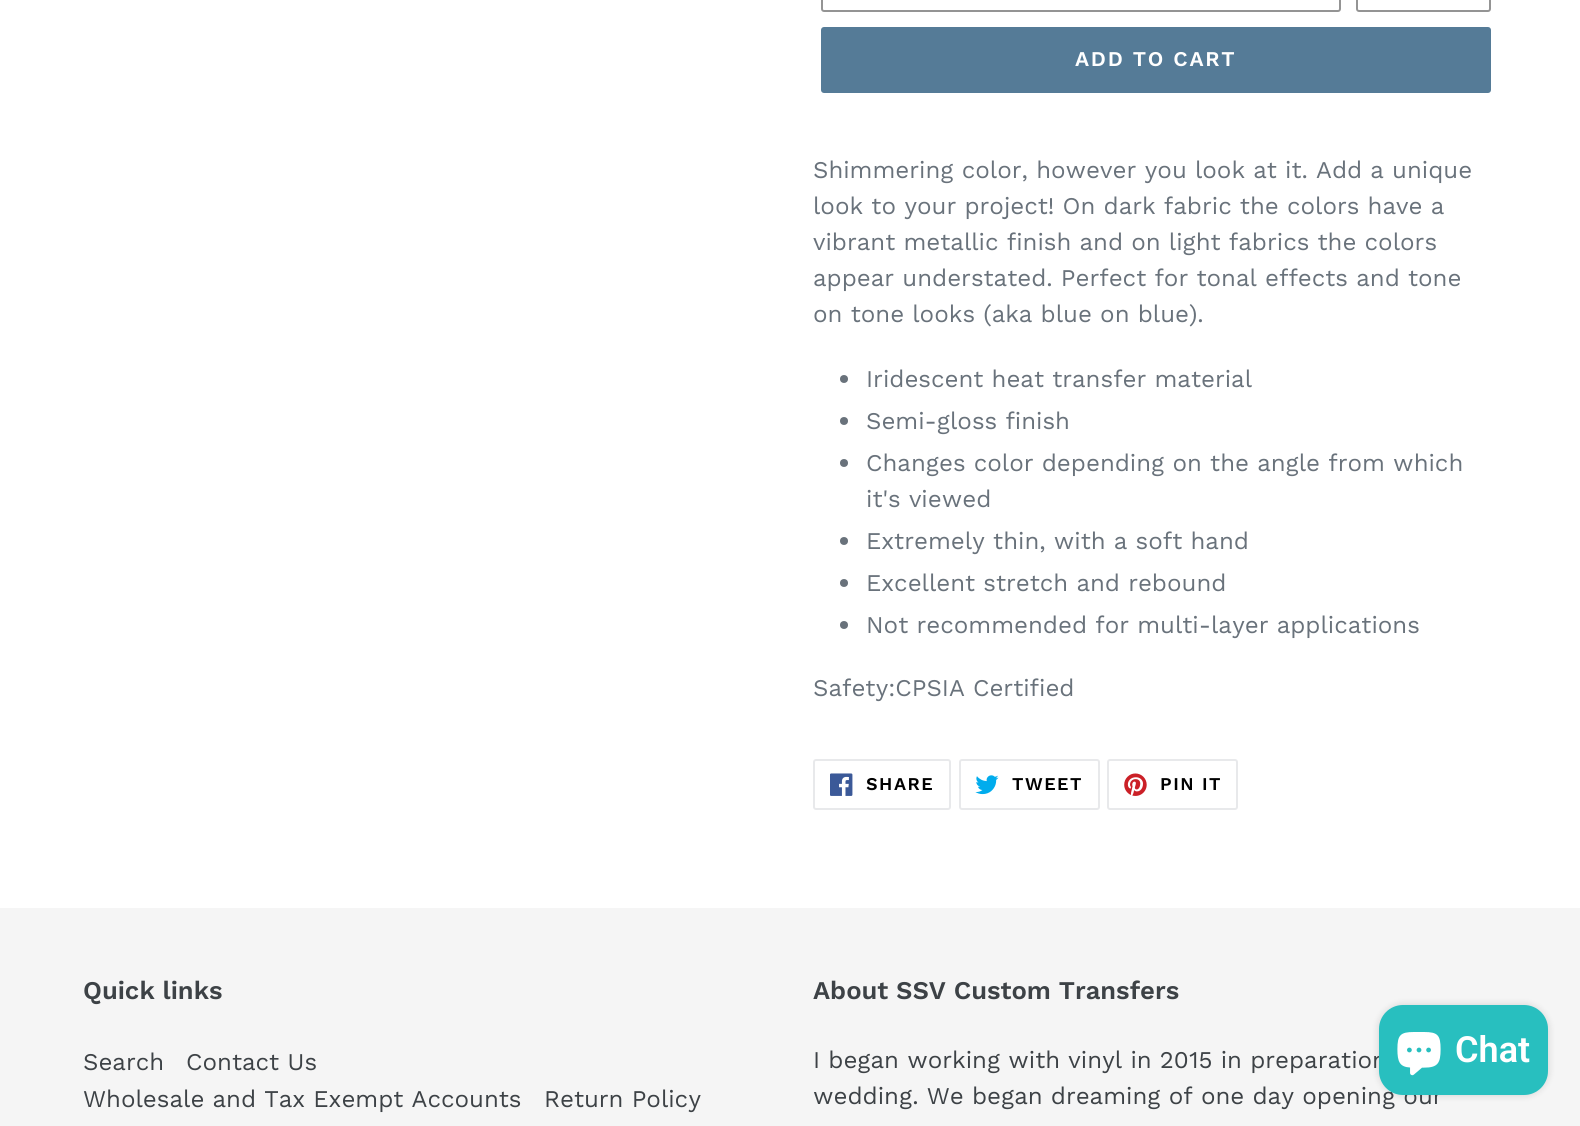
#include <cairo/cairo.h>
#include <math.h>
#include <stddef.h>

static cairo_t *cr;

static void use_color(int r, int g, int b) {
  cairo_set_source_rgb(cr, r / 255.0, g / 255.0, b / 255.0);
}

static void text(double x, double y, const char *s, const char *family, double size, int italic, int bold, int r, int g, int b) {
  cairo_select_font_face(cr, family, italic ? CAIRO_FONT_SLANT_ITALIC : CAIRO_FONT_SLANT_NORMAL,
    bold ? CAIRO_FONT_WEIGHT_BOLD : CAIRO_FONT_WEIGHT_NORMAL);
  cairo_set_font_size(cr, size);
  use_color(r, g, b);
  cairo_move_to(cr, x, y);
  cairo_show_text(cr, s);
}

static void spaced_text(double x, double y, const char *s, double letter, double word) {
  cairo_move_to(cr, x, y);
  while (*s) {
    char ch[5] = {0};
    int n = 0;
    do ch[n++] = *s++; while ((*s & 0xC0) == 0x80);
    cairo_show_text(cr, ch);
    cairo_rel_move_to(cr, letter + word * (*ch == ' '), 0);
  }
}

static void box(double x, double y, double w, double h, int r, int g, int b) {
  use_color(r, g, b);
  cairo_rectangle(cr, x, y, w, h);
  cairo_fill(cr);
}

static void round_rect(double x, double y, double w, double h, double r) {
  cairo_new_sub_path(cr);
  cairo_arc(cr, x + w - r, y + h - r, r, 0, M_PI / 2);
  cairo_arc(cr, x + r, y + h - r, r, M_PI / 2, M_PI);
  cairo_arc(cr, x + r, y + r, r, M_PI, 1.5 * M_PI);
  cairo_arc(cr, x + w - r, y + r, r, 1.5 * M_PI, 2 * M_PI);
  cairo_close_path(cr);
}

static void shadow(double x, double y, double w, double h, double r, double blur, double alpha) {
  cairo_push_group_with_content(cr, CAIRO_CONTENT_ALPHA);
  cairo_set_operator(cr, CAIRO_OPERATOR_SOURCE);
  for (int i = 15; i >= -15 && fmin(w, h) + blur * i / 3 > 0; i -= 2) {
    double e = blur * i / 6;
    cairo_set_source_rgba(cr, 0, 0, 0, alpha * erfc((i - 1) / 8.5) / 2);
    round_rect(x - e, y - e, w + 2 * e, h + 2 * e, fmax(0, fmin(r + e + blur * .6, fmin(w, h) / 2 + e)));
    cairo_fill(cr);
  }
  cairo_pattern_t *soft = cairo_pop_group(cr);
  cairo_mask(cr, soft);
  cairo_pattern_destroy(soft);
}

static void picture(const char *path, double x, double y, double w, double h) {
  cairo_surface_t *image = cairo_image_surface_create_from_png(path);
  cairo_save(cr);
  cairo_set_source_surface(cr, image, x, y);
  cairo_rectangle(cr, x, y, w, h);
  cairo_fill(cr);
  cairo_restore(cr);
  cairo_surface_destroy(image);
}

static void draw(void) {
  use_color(255, 255, 255);
  cairo_paint(cr);
  round_rect(822, -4, 518, 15, 2);
  use_color(148, 148, 148);
  cairo_stroke(cr);
  round_rect(1357, -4, 133, 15, 2);
  cairo_stroke(cr);
  use_color(85, 123, 151);
  round_rect(821, 27, 670, 66, 3);
  cairo_fill(cr);
  use_color(105, 114, 123);
  cairo_arc(cr, 844, 379, 4, 0, 2 * M_PI);
  cairo_fill(cr);
  cairo_arc(cr, 844, 421, 4, 0, 2 * M_PI);
  cairo_fill(cr);
  cairo_arc(cr, 844, 463, 4, 0, 2 * M_PI);
  cairo_fill(cr);
  cairo_arc(cr, 844, 541, 4, 0, 2 * M_PI);
  cairo_fill(cr);
  cairo_arc(cr, 844, 583, 4, 0, 2 * M_PI);
  cairo_fill(cr);
  cairo_arc(cr, 844, 625, 4, 0, 2 * M_PI);
  cairo_fill(cr);
  round_rect(814, 760, 136, 49, 2);
  use_color(232, 233, 235);
  cairo_stroke(cr);
  picture("img_01.png", 830, 773, 23, 23);
  round_rect(960, 760, 139, 49, 2);
  cairo_stroke(cr);
  picture("img_02.png", 975, 775, 24, 20);
  round_rect(1108, 760, 129, 49, 2);
  cairo_stroke(cr);
  picture("img_03.png", 1124, 773, 23, 23);
  box(0, 908, 1580, 218, 245, 245, 245);
  use_color(0, 0, 0);
  shadow(1379, 1005, 169, 90, 24, 4, 0.15);
  cairo_select_font_face(cr, "Work Sans SemiBold", CAIRO_FONT_SLANT_NORMAL, CAIRO_FONT_WEIGHT_NORMAL);
  cairo_set_font_size(cr, 21);
  use_color(255, 255, 255);
  spaced_text(1075, 66, "ADD TO CART", 1.75, 0);
  text(813, 178, "Shimmering color, however you look at it. Add a unique", "Work Sans", 24, 0, 0, 105, 114, 123);
  text(813, 214, "look to your project! On dark fabric the colors have a", "Work Sans", 24, 0, 0, 105, 114, 123);
  text(813, 250, "vibrant metallic finish and on light fabrics the colors", "Work Sans", 24, 0, 0, 105, 114, 123);
  text(813, 286, "appear understated. Perfect for tonal effects and tone", "Work Sans", 24, 0, 0, 105, 114, 123);
  text(813, 322, "on tone looks (aka blue on blue).", "Work Sans", 24, 0, 0, 105, 114, 123);
  text(866, 387, "Iridescent heat transfer material", "Work Sans", 24, 0, 0, 105, 114, 123);
  text(866, 429, "Semi-gloss finish", "Work Sans", 24, 0, 0, 105, 114, 123);
  text(866, 471, "Changes color depending on the angle from which", "Work Sans", 24, 0, 0, 105, 114, 123);
  text(866, 507, "it's viewed", "Work Sans", 24, 0, 0, 105, 114, 123);
  text(866, 549, "Extremely thin, with a soft hand", "Work Sans", 24, 0, 0, 105, 114, 123);
  text(866, 591, "Excellent stretch and rebound", "Work Sans", 24, 0, 0, 105, 114, 123);
  text(866, 633, "Not recommended for multi-layer applications", "Work Sans", 24, 0, 0, 105, 114, 123);
  text(813, 696, "Safety:CPSIA Certified", "Work Sans", 24, 0, 0, 105, 114, 123);
  cairo_select_font_face(cr, "Work Sans SemiBold", CAIRO_FONT_SLANT_NORMAL, CAIRO_FONT_WEIGHT_NORMAL);
  cairo_set_font_size(cr, 18);
  use_color(0, 0, 0);
  spaced_text(866, 790, "SHARE", 1.5, 0);
  spaced_text(1012, 790, "TWEET", 1.5, 0);
  spaced_text(1160, 790, "PIN IT", 1.5, 0);
  text(83, 999, "Quick links", "Work Sans SemiBold", 25.5, 0, 0, 61, 66, 70);
  text(83, 1070, "Search", "Work Sans", 24, 0, 0, 61, 66, 70);
  text(186, 1070, "Contact Us", "Work Sans", 24, 0, 0, 61, 66, 70);
  text(83, 1107, "Wholesale and Tax Exempt Accounts", "Work Sans", 24, 0, 0, 61, 66, 70);
  text(544, 1107, "Return Policy", "Work Sans", 24, 0, 0, 61, 66, 70);
  text(813, 999, "About SSV Custom Transfers", "Work Sans SemiBold", 25.5, 0, 0, 61, 66, 70);
  text(813, 1068, "I began working with vinyl in 2015 in preparation", "Work Sans", 24, 0, 0, 61, 66, 70);
  text(813, 1104, "wedding. We began dreaming of one day opening our", "Work Sans", 24, 0, 0, 61, 66, 70);
  use_color(40, 191, 191);
  round_rect(1379, 1005, 169, 90, 24);
  cairo_fill(cr);
  picture("img_04.png", 1397, 1032, 44, 44);
  text(1455, 1062, "Chat", "Roboto SemiBold", 36, 0, 0, 255, 255, 255);
}

int main(void) {
  cairo_surface_t *surface = cairo_image_surface_create(CAIRO_FORMAT_RGB24, 1580, 1126);
  cr = cairo_create(surface);
  cairo_font_options_t *options = cairo_font_options_create();
  cairo_font_options_set_hint_metrics(options, CAIRO_HINT_METRICS_OFF);
  cairo_font_options_set_hint_style(options, CAIRO_HINT_STYLE_NONE);
  cairo_set_font_options(cr, options);
  cairo_set_miter_limit(cr, 4);
  draw();
  cairo_surface_write_to_png(surface, "out.png");
  cairo_font_options_destroy(options);
  cairo_destroy(cr);
  cairo_surface_destroy(surface);
  return 0;
}
